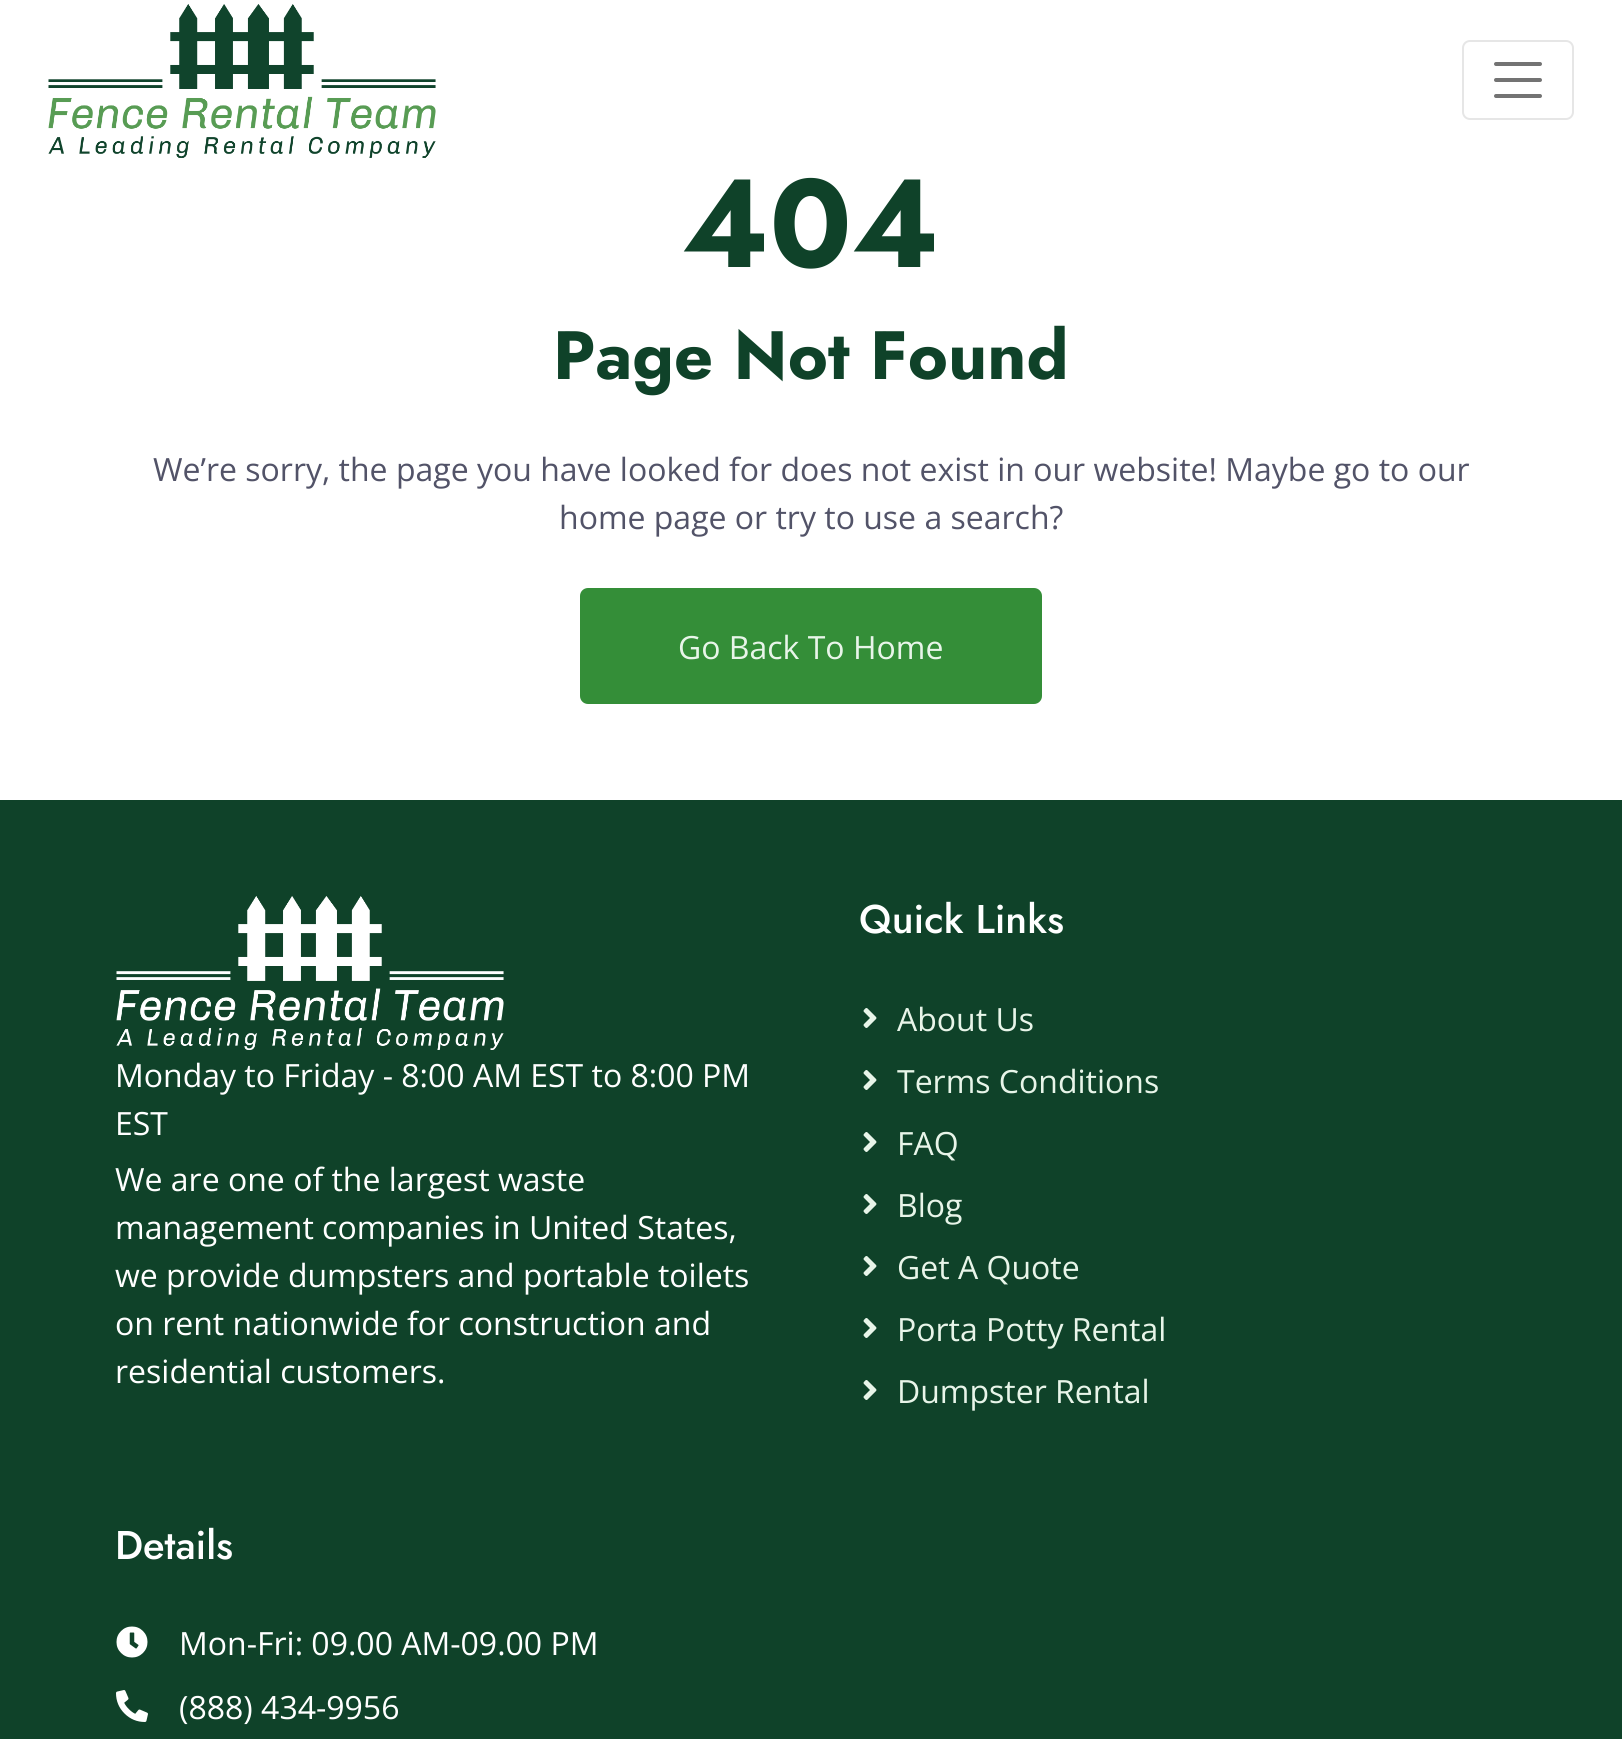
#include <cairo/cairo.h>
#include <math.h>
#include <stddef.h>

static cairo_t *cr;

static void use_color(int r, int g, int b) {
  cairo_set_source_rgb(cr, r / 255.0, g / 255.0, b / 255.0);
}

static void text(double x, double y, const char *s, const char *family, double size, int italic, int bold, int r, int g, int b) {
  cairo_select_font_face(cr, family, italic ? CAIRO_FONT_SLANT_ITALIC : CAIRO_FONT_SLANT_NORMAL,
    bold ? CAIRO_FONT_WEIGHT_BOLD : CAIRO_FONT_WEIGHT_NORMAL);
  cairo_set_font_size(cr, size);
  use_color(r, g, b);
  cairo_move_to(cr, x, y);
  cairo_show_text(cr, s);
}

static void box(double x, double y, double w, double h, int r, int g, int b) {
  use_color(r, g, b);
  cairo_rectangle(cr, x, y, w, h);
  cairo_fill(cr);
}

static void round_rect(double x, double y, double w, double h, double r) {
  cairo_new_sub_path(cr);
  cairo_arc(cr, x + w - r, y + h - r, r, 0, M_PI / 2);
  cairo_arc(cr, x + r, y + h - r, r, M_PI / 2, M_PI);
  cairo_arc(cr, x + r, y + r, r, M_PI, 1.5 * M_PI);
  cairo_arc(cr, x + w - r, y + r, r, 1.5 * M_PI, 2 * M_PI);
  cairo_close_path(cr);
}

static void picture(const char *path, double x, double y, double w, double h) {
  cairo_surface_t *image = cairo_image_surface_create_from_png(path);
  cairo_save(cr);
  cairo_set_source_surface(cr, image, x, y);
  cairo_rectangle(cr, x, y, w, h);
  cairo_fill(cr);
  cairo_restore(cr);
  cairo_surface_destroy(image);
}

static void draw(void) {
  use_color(255, 255, 255);
  cairo_paint(cr);
  picture("img_01.png", 48, 4, 388, 154);
  round_rect(1463, 41, 110, 78, 7);
  use_color(230, 230, 230);
  cairo_stroke(cr);
  cairo_new_path(cr);
  cairo_move_to(cr, 1496, 64);
  cairo_line_to(cr, 1540, 64);
  cairo_move_to(cr, 1496, 80);
  cairo_line_to(cr, 1540, 80);
  cairo_move_to(cr, 1496, 96);
  cairo_line_to(cr, 1540, 96);
  use_color(115, 115, 115);
  cairo_set_line_width(cr, 4);
  cairo_set_line_cap(cr, CAIRO_LINE_CAP_ROUND);
  cairo_stroke(cr);
  use_color(52, 142, 56);
  round_rect(581, 589, 460, 114, 7);
  cairo_fill_preserve(cr);
  cairo_set_line_width(cr, 2);
  cairo_set_line_cap(cr, CAIRO_LINE_CAP_BUTT);
  cairo_stroke(cr);
  box(0, 800, 1622, 939, 15, 66, 41);
  picture("img_02.png", 116, 896, 388, 154);
  picture("img_03.png", 863, 1008, 14, 20);
  picture("img_03.png", 863, 1070, 14, 20);
  picture("img_03.png", 863, 1132, 14, 20);
  picture("img_03.png", 863, 1194, 14, 20);
  picture("img_03.png", 863, 1256, 14, 20);
  picture("img_03.png", 863, 1318, 14, 20);
  picture("img_03.png", 863, 1380, 14, 20);
  picture("img_04.png", 116, 1626, 32, 32);
  picture("img_05.png", 116, 1690, 32, 32);
  text(682, 267, "404", "Jost", 125, 0, 1, 15, 66, 41);
  text(553, 379, "Page Not Found", "Jost", 68.25, 0, 1, 15, 66, 41);
  text(153, 481, "We’re sorry, the page you have looked for does not exist in our website! Maybe go to our", "Open Sans", 32, 0, 0, 82, 83, 104);
  text(559, 529, "home page or try to use a search?", "Open Sans", 32, 0, 0, 82, 83, 104);
  text(678, 659, "Go Back To Home", "Open Sans", 32, 0, 0, 232, 245, 233);
  text(115, 1087, "Monday to Friday - 8:00 AM EST to 8:00 PM", "Open Sans", 32, 0, 0, 255, 255, 255);
  text(115, 1135, "EST", "Open Sans", 32, 0, 0, 255, 255, 255);
  text(115, 1191, "We are one of the largest waste", "Open Sans", 32, 0, 0, 255, 255, 255);
  text(115, 1239, "management companies in United States,", "Open Sans", 32, 0, 0, 255, 255, 255);
  text(115, 1287, "we provide dumpsters and portable toilets", "Open Sans", 32, 0, 0, 255, 255, 255);
  text(115, 1335, "on rent nationwide for construction and", "Open Sans", 32, 0, 0, 255, 255, 255);
  text(115, 1383, "residential customers.", "Open Sans", 32, 0, 0, 255, 255, 255);
  text(859, 933, "Quick Links", "Jost Medium", 40, 0, 0, 255, 255, 255);
  text(897, 1031, "About Us", "Open Sans", 32, 0, 0, 232, 245, 233);
  text(897, 1093, "Terms Conditions", "Open Sans", 32, 0, 0, 232, 245, 233);
  text(897, 1155, "FAQ", "Open Sans", 32, 0, 0, 232, 245, 233);
  text(897, 1217, "Blog", "Open Sans", 32, 0, 0, 232, 245, 233);
  text(897, 1279, "Get A Quote", "Open Sans", 32, 0, 0, 232, 245, 233);
  text(897, 1341, "Porta Potty Rental", "Open Sans", 32, 0, 0, 232, 245, 233);
  text(897, 1403, "Dumpster Rental", "Open Sans", 32, 0, 0, 232, 245, 233);
  text(115, 1559, "Details", "Jost Medium", 40, 0, 0, 255, 255, 255);
  text(179, 1655, "Mon-Fri: 09.00 AM-09.00 PM", "Open Sans", 32, 0, 0, 255, 255, 255);
  text(179, 1719, "(888) 434-9956", "Open Sans", 32, 0, 0, 255, 255, 255);
}

int main(void) {
  cairo_surface_t *surface = cairo_image_surface_create(CAIRO_FORMAT_RGB24, 1622, 1739);
  cr = cairo_create(surface);
  cairo_font_options_t *options = cairo_font_options_create();
  cairo_font_options_set_hint_metrics(options, CAIRO_HINT_METRICS_OFF);
  cairo_font_options_set_hint_style(options, CAIRO_HINT_STYLE_NONE);
  cairo_set_font_options(cr, options);
  cairo_set_miter_limit(cr, 4);
  draw();
  cairo_surface_write_to_png(surface, "out.png");
  cairo_font_options_destroy(options);
  cairo_destroy(cr);
  cairo_surface_destroy(surface);
  return 0;
}
